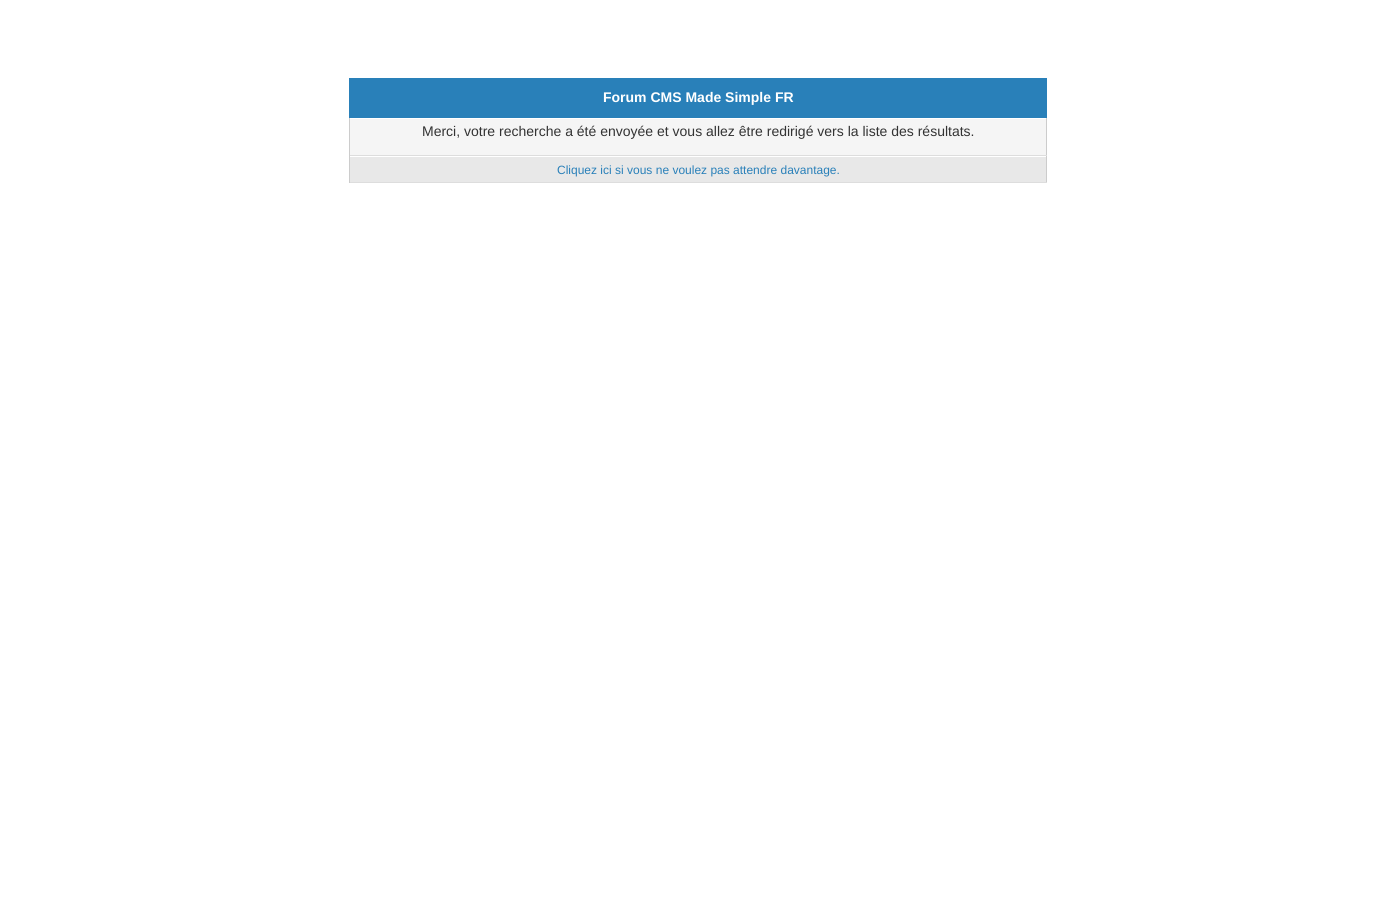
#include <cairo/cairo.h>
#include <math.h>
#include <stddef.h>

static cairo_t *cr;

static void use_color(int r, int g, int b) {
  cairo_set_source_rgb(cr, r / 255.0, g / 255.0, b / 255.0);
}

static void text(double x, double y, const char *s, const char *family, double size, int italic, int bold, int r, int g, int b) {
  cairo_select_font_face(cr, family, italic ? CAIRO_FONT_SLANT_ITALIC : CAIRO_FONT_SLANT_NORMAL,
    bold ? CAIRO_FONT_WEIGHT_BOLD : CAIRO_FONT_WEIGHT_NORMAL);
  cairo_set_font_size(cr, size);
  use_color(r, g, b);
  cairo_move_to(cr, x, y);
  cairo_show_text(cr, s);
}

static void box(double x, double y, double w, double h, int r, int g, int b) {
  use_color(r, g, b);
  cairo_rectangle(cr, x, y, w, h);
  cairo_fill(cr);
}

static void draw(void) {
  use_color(255, 255, 255);
  cairo_paint(cr);
  box(349, 78, 698, 40, 41, 128, 185);
  box(350, 119, 696, 36, 245, 245, 245);
  box(1046, 118, 1, 65, 204, 204, 204);
  box(349, 155, 698, 1, 221, 221, 221);
  box(349, 118, 1, 38, 204, 204, 204);
  box(350, 157, 696, 25, 232, 232, 232);
  box(349, 182, 698, 1, 221, 221, 221);
  box(349, 156, 1, 27, 204, 204, 204);
  text(603, 102, "Forum CMS Made Simple FR", "Liberation Sans", 14, 0, 1, 255, 255, 255);
  text(422, 136, "Merci, votre recherche a été envoyée et vous allez être redirigé vers la liste des résultats.", "Liberation Sans", 14, 0, 0, 51, 51, 51);
  text(557, 174, "Cliquez ici si vous ne voulez pas attendre davantage.", "Liberation Sans", 12, 0, 0, 41, 128, 185);
}

int main(void) {
  cairo_surface_t *surface = cairo_image_surface_create(CAIRO_FORMAT_RGB24, 1396, 897);
  cr = cairo_create(surface);
  cairo_font_options_t *options = cairo_font_options_create();
  cairo_font_options_set_hint_metrics(options, CAIRO_HINT_METRICS_OFF);
  cairo_font_options_set_hint_style(options, CAIRO_HINT_STYLE_NONE);
  cairo_set_font_options(cr, options);
  cairo_set_miter_limit(cr, 4);
  draw();
  cairo_surface_write_to_png(surface, "out.png");
  cairo_font_options_destroy(options);
  cairo_destroy(cr);
  cairo_surface_destroy(surface);
  return 0;
}
